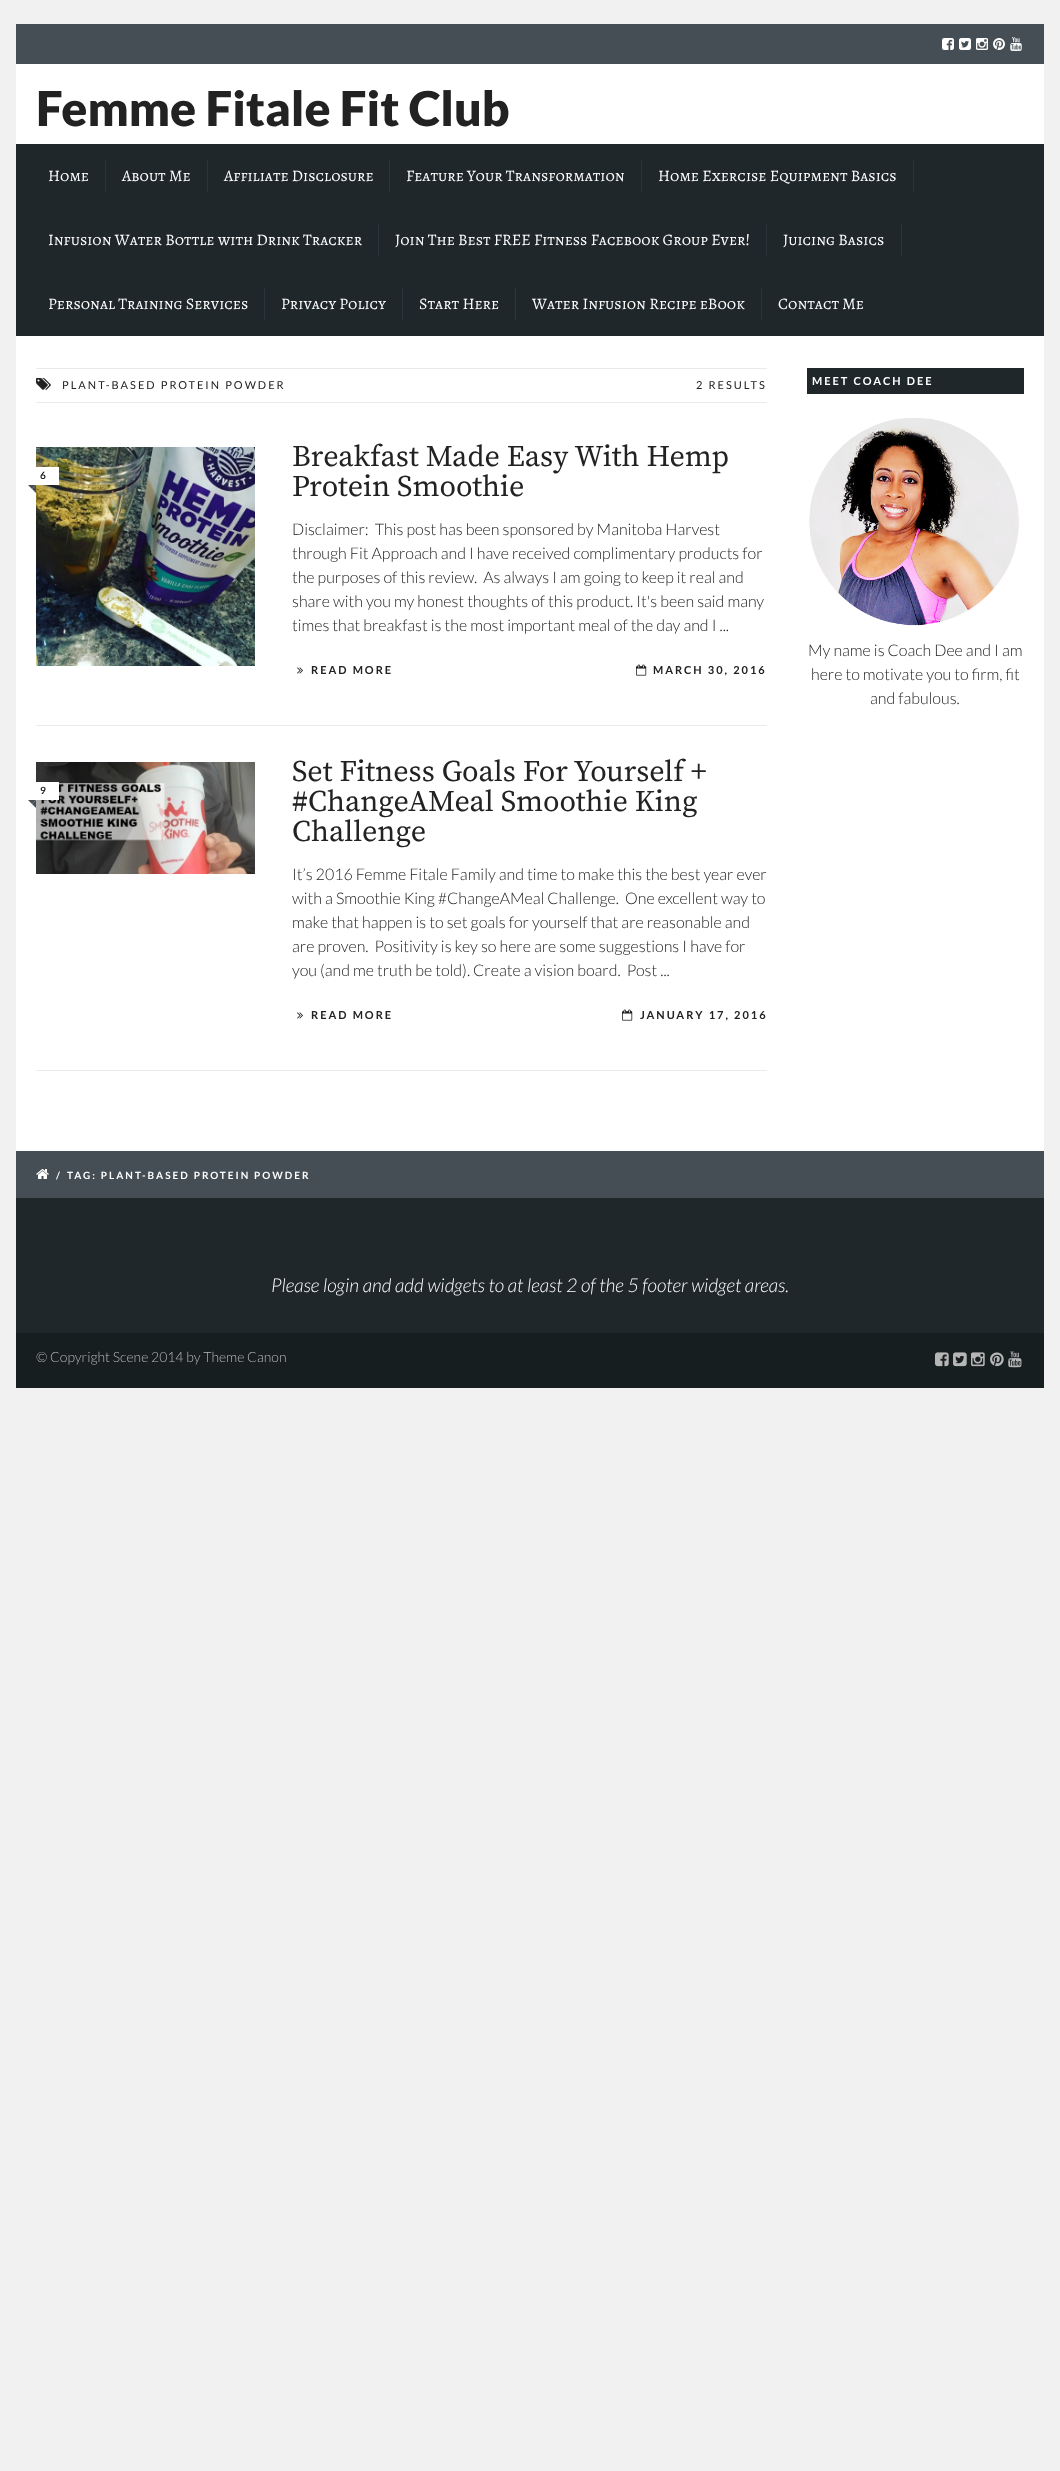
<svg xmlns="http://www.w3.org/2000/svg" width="1060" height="2471">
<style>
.a{font:900 48px Lato;fill:#222}
.b{font:16px Alegreya SC;fill:#fff}
.c{font:11px Lato;letter-spacing:2px;fill:#222}
.d{font:bold 10px Lato;fill:#222}
.e{font:30px Source Serif Pro;fill:#222}
.f{font:300 16px Lato;fill:#222}
.g{font:bold 11px Lato;letter-spacing:2px;fill:#222}
.h{font:bold 11px Lato;letter-spacing:2px;fill:#fff}
.i{font:bold 10px Lato;letter-spacing:2px;fill:#fff}
.j{font:italic 300 19px Lato;fill:#fff}
.k{font:300 14px Lato;fill:#b6b6b6}
</style>
<rect width="100%" height="100%" fill="#f1f1f1"/>
<path fill="#454e55" d="M16 24h1028v40H16z"/>
<image href="1.png" x="942" y="38" width="12" height="12"/>
<image href="2.png" x="959" y="38" width="12" height="12"/>
<image href="3.png" x="976" y="38" width="12" height="12"/>
<image href="4.png" x="993" y="38" width="12" height="12"/>
<image href="5.png" x="1010" y="37" width="12" height="14"/>
<path fill="#fff" d="M16 64h1028v80H16z"/>
<path fill="#1f272a" d="M16 144h1028v192H16z"/>
<path fill="#2b363c" d="M105 160h1v32H105z"/>
<path fill="#2b363c" d="M207 160h1v32H207z"/>
<path fill="#2b363c" d="M389 160h1v32H389z"/>
<path fill="#2b363c" d="M641 160h1v32H641z"/>
<path fill="#2b363c" d="M913 160h1v32H913z"/>
<path fill="#2b363c" d="M378 224h1v32H378z"/>
<path fill="#2b363c" d="M766 224h1v32H766z"/>
<path fill="#2b363c" d="M901 224h1v32H901z"/>
<path fill="#2b363c" d="M264 288h1v32H264z"/>
<path fill="#2b363c" d="M402 288h1v32H402z"/>
<path fill="#2b363c" d="M515 288h1v32H515z"/>
<path fill="#2b363c" d="M761 288h1v32H761z"/>
<path fill="#fff" d="M16 336h1028v815H16z"/>
<path fill="#eaeaea" d="M36 368h731v1H36z"/>
<path fill="#eaeaea" d="M36 402h731v1H36z"/>
<image href="6.png" x="36" y="378" width="15" height="12"/>
<path fill="#eaeaea" d="M36 725h731v1H36z"/>
<image href="7.png" x="36" y="447" width="219" height="219"/>
<path fill="#fff" d="M36 467h23v18H36z"/>
<path fill="#454e54" d="M28 485h8l-4 4z"/>
<path fill="#454e54" d="M36 485v8l-4-4z"/>
<image href="8.png" x="297" y="667" width="6" height="7"/>
<image href="9.png" x="636" y="664" width="11" height="12"/>
<path fill="#eaeaea" d="M36 1070h731v1H36z"/>
<image href="10.png" x="36" y="762" width="219" height="112"/>
<path fill="#fff" d="M36 782h23v18H36z"/>
<path fill="#454e54" d="M28 800h8l-4 4z"/>
<path fill="#454e54" d="M36 800v8l-4-4z"/>
<image href="8.png" x="297" y="1012" width="6" height="7"/>
<image href="9.png" x="622" y="1009" width="11" height="12"/>
<path fill="#20272b" d="M807 368h217v26H807z"/>
<image href="11.png" x="809" y="418" width="210" height="208"/>
<path fill="#454e55" d="M16 1151h1028v47H16z"/>
<image href="12.png" x="36" y="1169" width="13" height="10"/>
<path fill="#20272b" d="M16 1198h1028v135H16z"/>
<path fill="#171e20" d="M16 1333h1028v55H16z"/>
<image href="13.png" x="935" y="1352" width="14" height="15"/>
<image href="14.png" x="953" y="1352" width="14" height="15"/>
<image href="15.png" x="971" y="1352" width="14" height="15"/>
<image href="16.png" x="990" y="1352" width="14" height="15"/>
<image href="17.png" x="1008" y="1351" width="14" height="17"/>
<text class="a" x="36" y="126">Femme Fitale Fit Club</text>
<text class="b" x="48" y="181">Home</text>
<text class="b" x="122" y="181">About Me</text>
<text class="b" x="224" y="181">Affiliate Disclosure</text>
<text class="b" x="406" y="181">Feature Your Transformation</text>
<text class="b" x="658" y="181">Home Exercise Equipment Basics</text>
<text class="b" x="48" y="245">Infusion Water Bottle with Drink Tracker</text>
<text class="b" x="395" y="245">Join The Best FREE Fitness Facebook Group Ever!</text>
<text class="b" x="783" y="245">Juicing Basics</text>
<text class="b" x="48" y="309">Personal Training Services</text>
<text class="b" x="281" y="309">Privacy Policy</text>
<text class="b" x="419" y="309">Start Here</text>
<text class="b" x="532" y="309">Water Infusion Recipe eBook</text>
<text class="b" x="778" y="309">Contact Me</text>
<text class="c" x="62" y="389">PLANT-BASED PROTEIN POWDER</text>
<text class="c" x="696" y="389">2 RESULTS</text>
<text class="d" x="40" y="479">6</text>
<text class="e" x="292" y="466">Breakfast Made Easy With Hemp</text>
<text class="e" x="292" y="496">Protein Smoothie</text>
<text class="f" xml:space="preserve" x="292" y="535">Disclaimer:  This post has been sponsored by Manitoba Harvest</text>
<text class="f" x="292" y="559">through Fit Approach and I have received complimentary products for</text>
<text class="f" xml:space="preserve" x="292" y="583">the purposes of this review.  As always I am going to keep it real and</text>
<text class="f" x="292" y="607">share with you my honest thoughts of this product. It's been said many</text>
<text class="f" x="292" y="631">times that breakfast is the most important meal of the day and I ...</text>
<text class="g" x="311" y="674">READ MORE</text>
<text class="g" x="653" y="674">MARCH 30, 2016</text>
<text class="d" x="40" y="794">9</text>
<text class="e" x="292" y="781">Set Fitness Goals For Yourself +</text>
<text class="e" x="292" y="811">#ChangeAMeal Smoothie King</text>
<text class="e" x="292" y="841">Challenge</text>
<text class="f" x="292" y="880">It’s 2016 Femme Fitale Family and time to make this the best year ever</text>
<text class="f" xml:space="preserve" x="292" y="904">with a Smoothie King #ChangeAMeal Challenge.  One excellent way to</text>
<text class="f" x="292" y="928">make that happen is to set goals for yourself that are reasonable and</text>
<text class="f" xml:space="preserve" x="292" y="952">are proven.  Positivity is key so here are some suggestions I have for</text>
<text class="f" xml:space="preserve" x="292" y="976">you (and me truth be told). Create a vision board.  Post ...</text>
<text class="g" x="311" y="1019">READ MORE</text>
<text class="g" x="640" y="1019">JANUARY 17, 2016</text>
<text class="h" x="812" y="385">MEET COACH DEE</text>
<text class="f" x="808" y="656">My name is Coach Dee and I am</text>
<text class="f" x="811" y="680">here to motivate you to firm, fit</text>
<text class="f" x="870" y="704">and fabulous.</text>
<text class="i" x="56" y="1179">/</text>
<text class="i" x="67" y="1179">TAG: PLANT-BASED PROTEIN POWDER</text>
<text class="j" x="271" y="1292">Please login and add widgets to at least 2 of the 5 footer widget areas.</text>
<text class="k" x="36" y="1362">© Copyright Scene 2014 by Theme Canon</text>
</svg>
